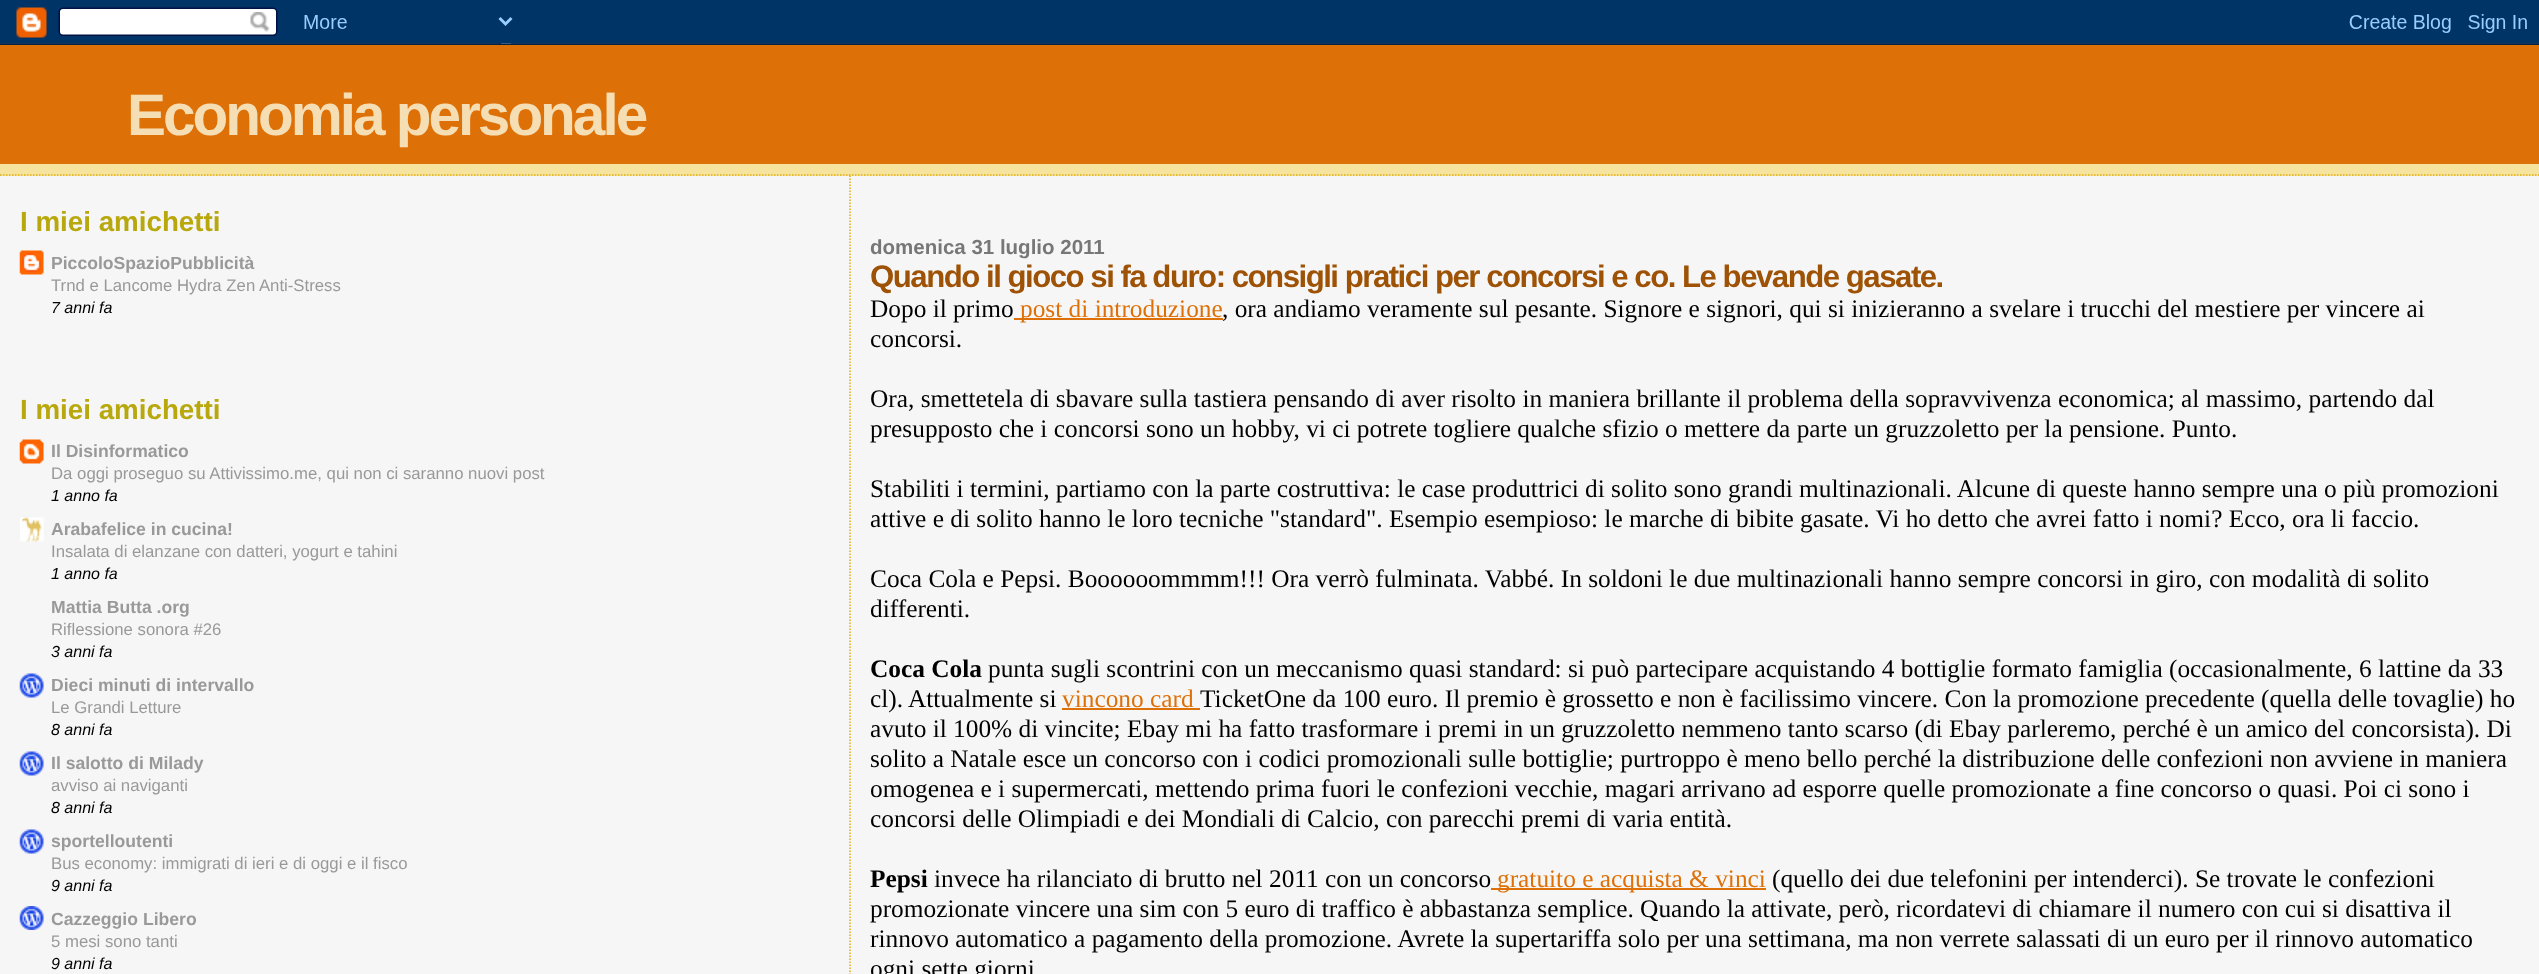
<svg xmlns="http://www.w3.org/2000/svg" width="2539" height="974">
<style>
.a{font:bold 58.5px Liberation Sans;letter-spacing:-3px;fill:#f5deb3}
.b{font:bold 27.75px Liberation Sans;fill:#b8a80d}
.c{font:bold 17.6px Liberation Sans;fill:#999}
.d{font:16.75px Liberation Sans;fill:#999}
.e{font:italic 16px Liberation Sans;fill:#000}
.f{font:bold 20.5px Liberation Sans;fill:#777}
.g{font:bold 31.2px Liberation Sans;letter-spacing:-1.5px;fill:#9e5205}
.h{font:25.35px Liberation Serif;fill:#000}
.i{font:25.35px Liberation Serif;fill:#de7008}
.j{font:bold 25.35px Liberation Serif;fill:#000}
</style>
<rect width="100%" height="100%" fill="#f6f6f6"/>
<image href="1.png" x="0" y="0" width="2539" height="45"/>
<path fill="#f5e39e" d="M0 164h2539v12H0z"/>
<path fill="none" stroke="#e0ad12" stroke-width="1.5" stroke-dasharray="1.5 1.5" d="M0 175h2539.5"/>
<path fill="#de7008" d="M0 45h2539v119H0z"/>
<image href="2.png" x="19" y="250" width="25" height="25"/>
<image href="3.png" x="19" y="439" width="25" height="25"/>
<image href="4.png" x="20" y="517" width="24" height="25"/>
<image href="5.png" x="19" y="673" width="25" height="25"/>
<image href="5.png" x="19" y="751" width="25" height="25"/>
<image href="5.png" x="19" y="829" width="25" height="25"/>
<image href="6.png" x="19" y="906" width="25" height="24"/>
<path fill="none" stroke="#e0ad12" stroke-width="1.5" stroke-dasharray="1.5 1.5" d="M850 175.5v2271"/>
<path fill="#de7008" d="M1014 318h209v2H1014z"/>
<path fill="#de7008" d="M1062 708h138v2H1062z"/>
<path fill="#de7008" d="M1491 888h275v2H1491z"/>
<text class="a" x="127" y="135">Economia personale</text>
<text class="b" x="20" y="231">I miei amichetti</text>
<text class="c" x="51" y="269">PiccoloSpazioPubblicità</text>
<text class="d" x="51" y="291">Trnd e Lancome Hydra Zen Anti-Stress</text>
<text class="e" x="51" y="313">7 anni fa</text>
<text class="b" x="20" y="419">I miei amichetti</text>
<text class="c" x="51" y="457">Il Disinformatico</text>
<text class="d" x="51" y="479">Da oggi proseguo su Attivissimo.me, qui non ci saranno nuovi post</text>
<text class="e" x="51" y="501">1 anno fa</text>
<text class="c" x="51" y="535">Arabafelice in cucina!</text>
<text class="d" x="51" y="557">Insalata di elanzane con datteri, yogurt e tahini</text>
<text class="e" x="51" y="579">1 anno fa</text>
<text class="c" x="51" y="613">Mattia Butta .org</text>
<text class="d" x="51" y="635">Riflessione sonora #26</text>
<text class="e" x="51" y="657">3 anni fa</text>
<text class="c" x="51" y="691">Dieci minuti di intervallo</text>
<text class="d" x="51" y="713">Le Grandi Letture</text>
<text class="e" x="51" y="735">8 anni fa</text>
<text class="c" x="51" y="769">Il salotto di Milady</text>
<text class="d" x="51" y="791">avviso ai naviganti</text>
<text class="e" x="51" y="813">8 anni fa</text>
<text class="c" x="51" y="847">sportelloutenti</text>
<text class="d" x="51" y="869">Bus economy: immigrati di ieri e di oggi e il fisco</text>
<text class="e" x="51" y="891">9 anni fa</text>
<text class="c" x="51" y="925">Cazzeggio Libero</text>
<text class="d" x="51" y="947">5 mesi sono tanti</text>
<text class="e" x="51" y="969">9 anni fa</text>
<text class="f" x="870" y="254">domenica 31 luglio 2011</text>
<text class="g" x="870" y="287">Quando il gioco si fa duro: consigli pratici per concorsi e co. Le bevande gasate.</text>
<text class="h" x="870" y="317">Dopo il primo</text>
<text class="i" x="1020" y="317">post di introduzione</text>
<text class="h" x="1222" y="317">, ora andiamo veramente sul pesante. Signore e signori, qui si inizieranno a svelare i trucchi del mestiere per vincere ai</text>
<text class="h" x="870" y="347">concorsi.</text>
<text class="h" x="870" y="407">Ora, smettetela di sbavare sulla tastiera pensando di aver risolto in maniera brillante il problema della sopravvivenza economica; al massimo, partendo dal</text>
<text class="h" x="870" y="437">presupposto che i concorsi sono un hobby, vi ci potrete togliere qualche sfizio o mettere da parte un gruzzoletto per la pensione. Punto.</text>
<text class="h" x="870" y="497">Stabiliti i termini, partiamo con la parte costruttiva: le case produttrici di solito sono grandi multinazionali. Alcune di queste hanno sempre una o più promozioni</text>
<text class="h" x="870" y="527">attive e di solito hanno le loro tecniche "standard". Esempio esempioso: le marche di bibite gasate. Vi ho detto che avrei fatto i nomi? Ecco, ora li faccio.</text>
<text class="h" x="870" y="587">Coca Cola e Pepsi. Boooooommmm!!! Ora verrò fulminata. Vabbé. In soldoni le due multinazionali hanno sempre concorsi in giro, con modalità di solito</text>
<text class="h" x="870" y="617">differenti.</text>
<text class="j" x="870" y="677">Coca Cola</text>
<text class="h" x="988" y="677">punta sugli scontrini con un meccanismo quasi standard: si può partecipare acquistando 4 bottiglie formato famiglia (occasionalmente, 6 lattine da 33</text>
<text class="h" x="870" y="707">cl). Attualmente si</text>
<text class="i" x="1062" y="707">vincono card</text>
<text class="h" x="1200" y="707">TicketOne da 100 euro. Il premio è grossetto e non è facilissimo vincere. Con la promozione precedente (quella delle tovaglie) ho</text>
<text class="h" x="870" y="737">avuto il 100% di vincite; Ebay mi ha fatto trasformare i premi in un gruzzoletto nemmeno tanto scarso (di Ebay parleremo, perché è un amico del concorsista). Di</text>
<text class="h" x="870" y="767">solito a Natale esce un concorso con i codici promozionali sulle bottiglie; purtroppo è meno bello perché la distribuzione delle confezioni non avviene in maniera</text>
<text class="h" x="870" y="797">omogenea e i supermercati, mettendo prima fuori le confezioni vecchie, magari arrivano ad esporre quelle promozionate a fine concorso o quasi. Poi ci sono i</text>
<text class="h" x="870" y="827">concorsi delle Olimpiadi e dei Mondiali di Calcio, con parecchi premi di varia entità.</text>
<text class="j" x="870" y="887">Pepsi</text>
<text class="h" x="934" y="887">invece ha rilanciato di brutto nel 2011 con un concorso</text>
<text class="i" x="1497" y="887">gratuito e acquista &amp; vinci</text>
<text class="h" x="1772" y="887">(quello dei due telefonini per intenderci). Se trovate le confezioni</text>
<text class="h" x="870" y="917">promozionate vincere una sim con 5 euro di traffico è abbastanza semplice. Quando la attivate, però, ricordatevi di chiamare il numero con cui si disattiva il</text>
<text class="h" x="870" y="947">rinnovo automatico a pagamento della promozione. Avrete la supertariffa solo per una settimana, ma non verrete salassati di un euro per il rinnovo automatico</text>
<text class="h" x="870" y="977">ogni sette giorni</text>
</svg>
